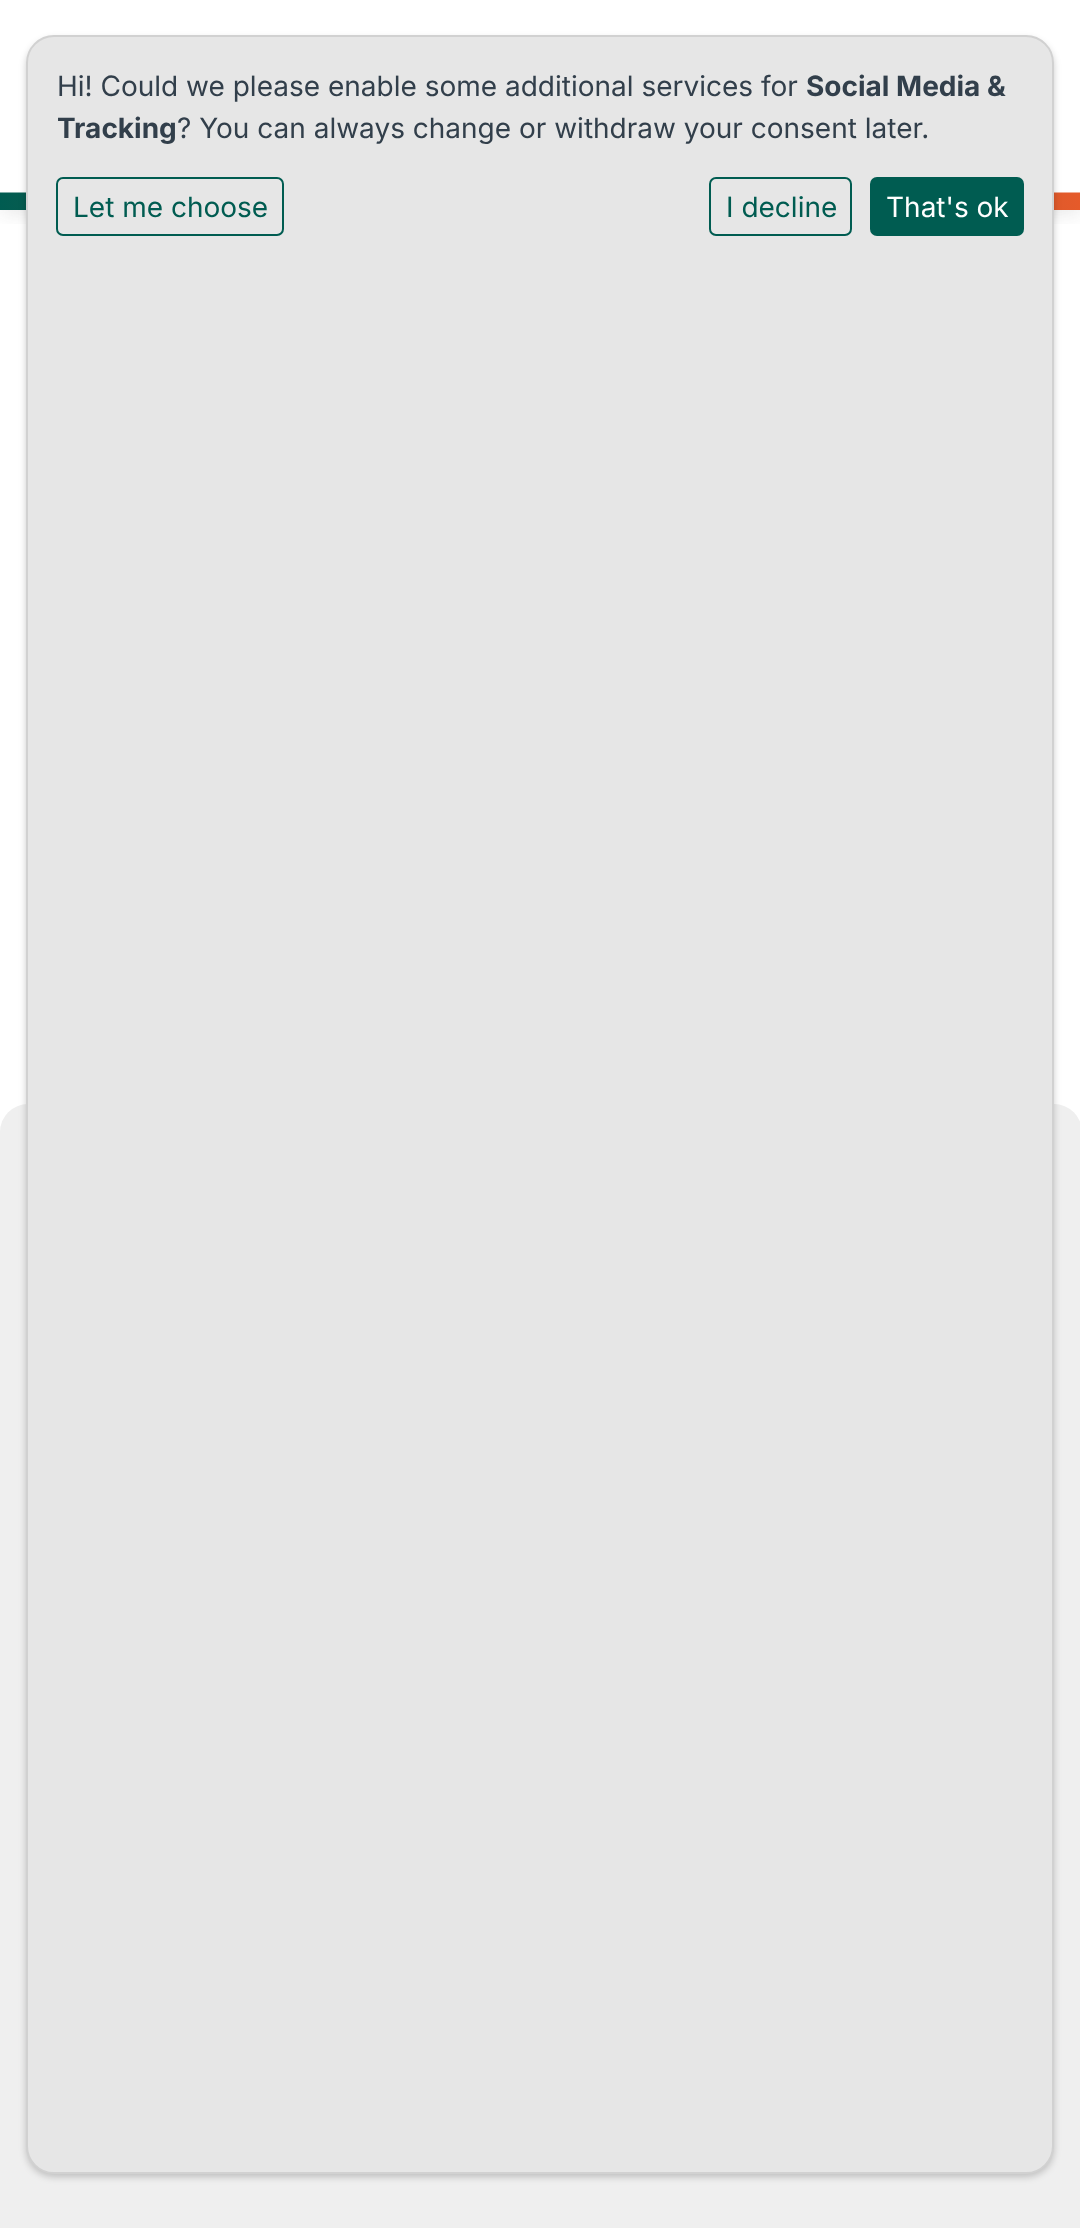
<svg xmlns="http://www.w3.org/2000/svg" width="1080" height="2228">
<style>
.a{font:28px Inter;fill:#323f4b}
.b{font:bold 28px Inter;fill:#323f4b}
.c{font:28px Inter;fill:#005c51}
.d{font:28px Inter;fill:#fff}
</style>
<defs>
<clipPath id="clip1"><path d="M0 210h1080v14H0z"/></clipPath>
</defs>
<rect width="100%" height="100%" fill="#fff"/>
<g clip-path="url(#clip1)">
<path fill="#4b4b4b26" filter="blur(10.5px)" d="M2 5h1078v207H2z"/>
</g>
<image href="1.png" x="0" y="192" width="1080" height="18"/>
<rect fill="#efefef" y="1104" width="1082" height="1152" rx="28"/>
<rect fill="#00000033" filter="blur(3.5px)" x="26" y="39" width="1028" height="2138" rx="28"/>
<rect fill="#e6e6e6" stroke="#d1d1d1" stroke-width="2" x="27" y="36" width="1026" height="2137" rx="27"/>
<rect fill="none" stroke="#005c51" stroke-width="2" x="57" y="178" width="226" height="57" rx="6"/>
<rect fill="none" stroke="#005c51" stroke-width="2" x="710" y="178" width="141" height="57" rx="6"/>
<rect fill="#005c51" x="870" y="177" width="154" height="59" rx="7"/>
<text class="a" x="57" y="96">Hi! Could we please enable some additional services for</text>
<text class="b" x="806" y="96">Social Media &amp;</text>
<text class="b" x="57" y="138">Tracking</text>
<text class="a" x="177" y="138">? You can always change or withdraw your consent later.</text>
<text class="c" x="73" y="217">Let me choose</text>
<text class="c" x="726" y="217">I decline</text>
<text class="d" x="886" y="217">That's ok</text>
</svg>
